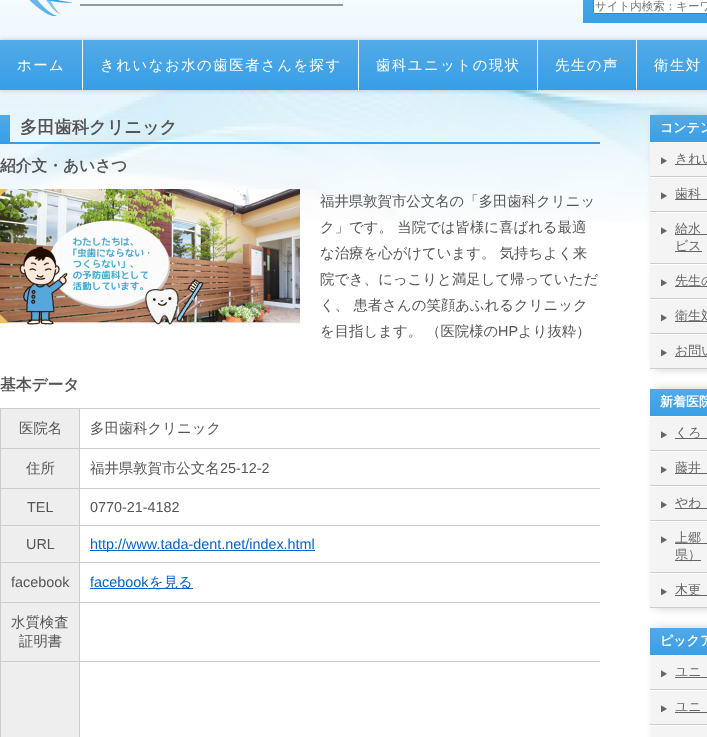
<svg xmlns="http://www.w3.org/2000/svg" width="707" height="737">
<style>
.a{font:500 11.5px WenQuanYi Zen Hei;fill:#757575}
.b{font:500 14.4px WenQuanYi Zen Hei;letter-spacing:1.5px;fill:#fff}
.c{font:bold 17.25px WenQuanYi Zen Hei;fill:#555}
.d{font:bold 15.75px WenQuanYi Zen Hei;fill:#555}
.e{font:500 14.4px WenQuanYi Zen Hei;fill:#555}
.f{font:14.4px Liberation Sans;fill:#555}
.g{font:14.4px Liberation Sans;fill:#06c}
.h{font:500 14.4px WenQuanYi Zen Hei;fill:#06c}
.i{font:bold 13px WenQuanYi Zen Hei;fill:#fff}
.j{font:500 13px WenQuanYi Zen Hei;fill:#666}
</style>
<rect width="100%" height="100%" fill="#fff"/>
<image href="1.png" x="0" y="0" width="707" height="222"/>
<image href="2.png" x="29" y="0" width="43" height="16"/>
<path fill="#999" d="M80 4h263v2H80z"/>
<image href="3.png" x="583" y="0" width="124" height="23"/>
<path fill="#fff" d="M595-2h112v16h-112c-1 0-2-1-2-2v-12c0-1 1-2 2-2z"/>
<rect fill="none" stroke="#767676" x="593.5" y="-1.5" width="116" height="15" rx="1.5"/>
<path fill="#00000033" filter="blur(2.5px)" d="M0 40h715v50H0z"/>
<image href="4.png" x="0" y="40" width="707" height="50"/>
<path fill="#fff" d="M82 40h1v50H82z"/>
<path fill="#fff" d="M358 40h1v50H358z"/>
<path fill="#fff" d="M537 40h1v50H537z"/>
<path fill="#fff" d="M636 40h1v50H636z"/>
<image href="5.png" x="0" y="115" width="10" height="27"/>
<path fill="#369ee7" d="M0 142h600v2H0z"/>
<image href="6.png" x="0" y="189" width="300" height="136"/>
<path fill="#ccc" d="M0 408h600v1H0z"/>
<path fill="#ccc" d="M0 408h1v329H0z"/>
<path fill="#eee" d="M1 409h78v39H1z"/>
<path fill="#ccc" d="M79 448h521v1H79z"/>
<path fill="#ccc" d="M79 488h521v1H79z"/>
<path fill="#ccc" d="M79 525h521v1H79z"/>
<path fill="#ccc" d="M79 562h521v1H79z"/>
<path fill="#ccc" d="M79 602h521v1H79z"/>
<path fill="#ccc" d="M79 661h521v1H79z"/>
<path fill="#ccc" d="M79 661h1v76H79z"/>
<path fill="#ccc" d="M0 661h80v1H0z"/>
<path fill="#ccc" d="M79 602h1v60H79z"/>
<path fill="#ccc" d="M0 602h80v1H0z"/>
<path fill="#ccc" d="M79 562h1v41H79z"/>
<path fill="#ccc" d="M0 562h80v1H0z"/>
<path fill="#ccc" d="M79 525h1v38H79z"/>
<path fill="#ccc" d="M0 525h80v1H0z"/>
<path fill="#ccc" d="M79 488h1v38H79z"/>
<path fill="#ccc" d="M0 488h80v1H0z"/>
<path fill="#ccc" d="M79 448h1v41H79z"/>
<path fill="#ccc" d="M0 448h80v1H0z"/>
<path fill="#ccc" d="M79 408h1v41H79z"/>
<path fill="#eee" d="M1 449h78v39H1z"/>
<path fill="#eee" d="M1 489h78v36H1z"/>
<path fill="#eee" d="M1 526h78v36H1z"/>
<path fill="#06c" d="M90 550h225v1H90z"/>
<path fill="#eee" d="M1 563h78v39H1z"/>
<path fill="#06c" d="M90 588h103v1H90z"/>
<path fill="#eee" d="M1 603h78v58H1z"/>
<path fill="#eee" d="M1 662h78v75H1z"/>
<path fill="#00000033" filter="blur(5px)" d="M655 115h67v254H655z"/>
<path fill="#f4f4f4" d="M650 143h57v225H650z"/>
<image href="7.png" x="650" y="115" width="57" height="27"/>
<image href="8.png" x="661" y="157" width="6" height="8"/>
<path fill="#fff" d="M650 142h57v1H650z"/>
<path fill="#ccc" d="M650 176h57v1H650z"/>
<path fill="#666" d="M675 164h32v1H675z"/>
<image href="8.png" x="661" y="192" width="6" height="8"/>
<path fill="#fff" d="M650 177h57v1H650z"/>
<path fill="#ccc" d="M650 211h57v1H650z"/>
<path fill="#666" d="M675 199h32v1H675z"/>
<image href="8.png" x="661" y="227" width="6" height="8"/>
<path fill="#fff" d="M650 212h57v1H650z"/>
<path fill="#ccc" d="M650 263h57v1H650z"/>
<path fill="#666" d="M675 234h32v1H675z"/>
<path fill="#666" d="M675 251h27v1H675z"/>
<image href="8.png" x="661" y="279" width="6" height="8"/>
<path fill="#fff" d="M650 264h57v1H650z"/>
<path fill="#ccc" d="M650 298h57v1H650z"/>
<path fill="#666" d="M675 286h32v1H675z"/>
<image href="8.png" x="661" y="314" width="6" height="8"/>
<path fill="#fff" d="M650 299h57v1H650z"/>
<path fill="#ccc" d="M650 333h57v1H650z"/>
<path fill="#666" d="M675 321h32v1H675z"/>
<image href="8.png" x="661" y="349" width="6" height="8"/>
<path fill="#fff" d="M650 334h57v1H650z"/>
<path fill="#ccc" d="M650 368h57v1H650z"/>
<path fill="#666" d="M675 356h32v1H675z"/>
<path fill="#00000033" filter="blur(5px)" d="M655 389h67v219H655z"/>
<path fill="#f4f4f4" d="M650 417h57v190H650z"/>
<image href="7.png" x="650" y="389" width="57" height="27"/>
<image href="8.png" x="661" y="431" width="6" height="8"/>
<path fill="#fff" d="M650 416h57v1H650z"/>
<path fill="#ccc" d="M650 450h57v1H650z"/>
<path fill="#666" d="M675 438h32v1H675z"/>
<image href="8.png" x="661" y="466" width="6" height="8"/>
<path fill="#fff" d="M650 451h57v1H650z"/>
<path fill="#ccc" d="M650 485h57v1H650z"/>
<path fill="#666" d="M675 473h32v1H675z"/>
<image href="8.png" x="661" y="501" width="6" height="8"/>
<path fill="#fff" d="M650 486h57v1H650z"/>
<path fill="#ccc" d="M650 520h57v1H650z"/>
<path fill="#666" d="M675 508h32v1H675z"/>
<image href="8.png" x="661" y="536" width="6" height="8"/>
<path fill="#fff" d="M650 521h57v1H650z"/>
<path fill="#ccc" d="M650 572h57v1H650z"/>
<path fill="#666" d="M675 543h32v1H675z"/>
<path fill="#666" d="M675 560h26v1H675z"/>
<image href="8.png" x="661" y="588" width="6" height="8"/>
<path fill="#fff" d="M650 573h57v1H650z"/>
<path fill="#ccc" d="M650 607h57v1H650z"/>
<path fill="#666" d="M675 595h32v1H675z"/>
<path fill="#00000033" filter="blur(5px)" d="M655 628h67v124H655z"/>
<path fill="#f4f4f4" d="M652 656h55v81H652z"/>
<image href="7.png" x="650" y="628" width="57" height="27"/>
<image href="8.png" x="661" y="670" width="6" height="8"/>
<path fill="#fff" d="M650 655h57v1H650z"/>
<path fill="#ccc" d="M650 689h57v1H650z"/>
<path fill="#666" d="M675 677h32v1H675z"/>
<image href="8.png" x="661" y="705" width="6" height="8"/>
<path fill="#fff" d="M650 690h57v1H650z"/>
<path fill="#ccc" d="M650 724h57v1H650z"/>
<path fill="#666" d="M675 712h32v1H675z"/>
<path fill="#fff" d="M650 725h57v1H650z"/>
<text class="a" x="595" y="10">サイト内検索：キーワ</text>
<text class="b" x="17" y="70">ホーム</text>
<text class="b" x="100" y="70">きれいなお水の歯医者さんを探す</text>
<text class="b" x="376" y="70">歯科ユニットの現状</text>
<text class="b" x="555" y="70">先生の声</text>
<text class="b" x="654" y="70">衛生対</text>
<text class="c" x="20" y="133">多田歯科クリニック</text>
<text class="d" x="0" y="171">紹介文・あいさつ</text>
<text class="e" x="320" y="206">福井県敦賀市公文名の「多田歯科クリニッ</text>
<text class="e" x="320" y="232">ク」です。 当院では皆様に喜ばれる最適</text>
<text class="e" x="320" y="258">な治療を心がけています。 気持ちよく来</text>
<text class="e" x="320" y="284">院でき、にっこりと満足して帰っていただ</text>
<text class="e" x="320" y="310">く、 患者さんの笑顔あふれるクリニック</text>
<text class="e" x="320" y="336">を目指します。</text>
<text class="e" x="426" y="336">（医院様の</text>
<text class="f" x="498" y="336">HP</text>
<text class="e" x="518" y="336">より抜粋）</text>
<text class="d" x="0" y="390">基本データ</text>
<text class="e" x="19" y="433">医院名</text>
<text class="e" x="90" y="433">多田歯科クリニック</text>
<text class="e" x="26" y="473">住所</text>
<text class="e" x="90" y="473">福井県敦賀市公文名</text>
<text class="f" x="220" y="473">25-12-2</text>
<text class="f" x="27" y="512">TEL</text>
<text class="f" x="90" y="512">0770-21-4182</text>
<text class="f" x="26" y="549">URL</text>
<text class="g" x="90" y="549">http://www.tada-dent.net/index.html</text>
<text class="f" x="11" y="587">facebook</text>
<text class="g" x="90" y="587">facebook</text>
<text class="h" x="149" y="587">を見る</text>
<text class="e" x="11" y="627">水質検査</text>
<text class="e" x="19" y="646">証明書</text>
<text class="i" x="660" y="132">コンテン</text>
<text class="j" x="675" y="163">きれい</text>
<text class="j" x="675" y="198">歯科</text>
<text class="j" x="675" y="233">給水</text>
<text class="j" x="675" y="250">ビス</text>
<text class="j" x="675" y="285">先生の</text>
<text class="j" x="675" y="320">衛生対</text>
<text class="j" x="675" y="355">お問い</text>
<text class="i" x="660" y="406">新着医院</text>
<text class="j" x="675" y="437">くろ</text>
<text class="j" x="675" y="472">藤井</text>
<text class="j" x="675" y="507">やわ</text>
<text class="j" x="675" y="542">上郷</text>
<text class="j" x="675" y="559">県）</text>
<text class="j" x="675" y="594">木更</text>
<text class="i" x="660" y="645">ピックア</text>
<text class="j" x="675" y="676">ユニ</text>
<text class="j" x="675" y="711">ユニ</text>
</svg>
